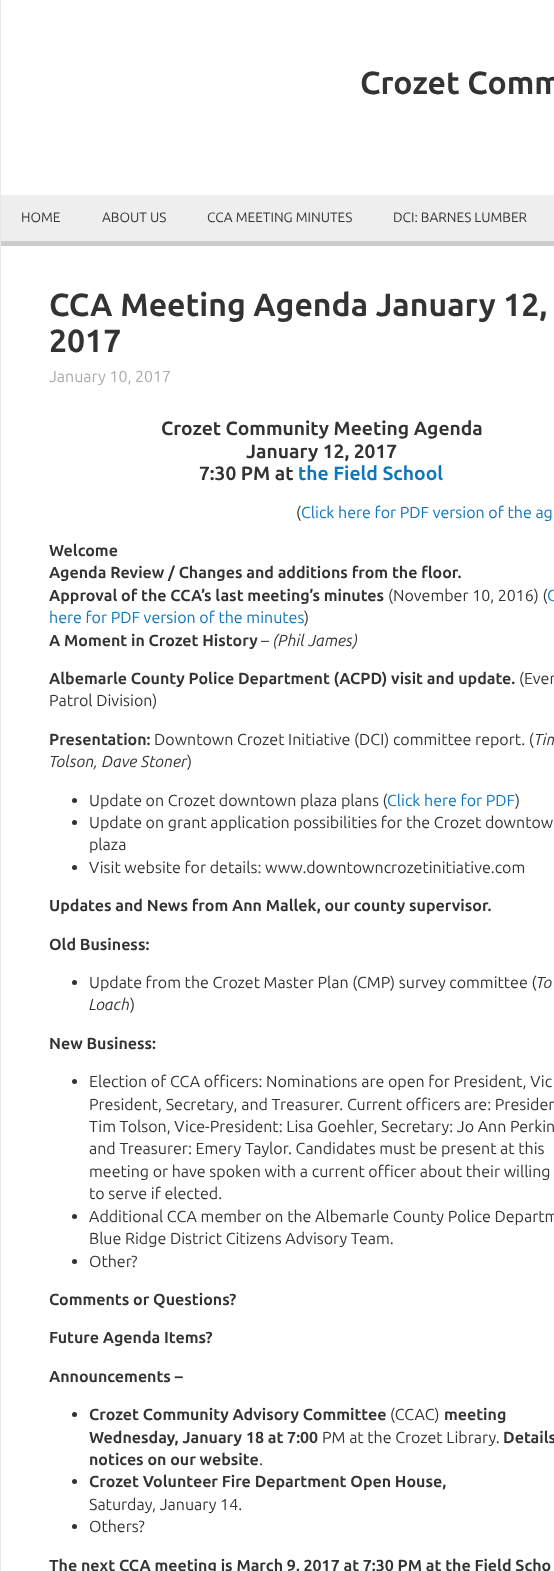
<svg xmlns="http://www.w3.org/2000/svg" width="554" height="1571">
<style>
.a{font:bold 32px Ubuntu;fill:#333}
.b{font:13.6px Ubuntu;fill:#333}
.c{font:16px Ubuntu;fill:#aaa}
.d{font:bold 19.25px Ubuntu;fill:#333}
.e{font:bold 19.25px Ubuntu;fill:#0e76bc}
.f{font:16px Ubuntu;fill:#333}
.g{font:16px Ubuntu;fill:#0e76bc}
.h{font:bold 16px Ubuntu;fill:#333}
.i{font:italic 16px Ubuntu;fill:#333}
</style>
<rect width="100%" height="100%" fill="#fff"/>
<path fill="#e9e9e9" d="M0 0h1v1571H0z"/>
<path fill="#eee" d="M1 195h553v46H1z"/>
<path fill="#ccc" d="M1 241h553v5H1z"/>
<circle fill="#333" cx="74.5" cy="800.5" r="2.5"/>
<circle fill="#333" cx="74.5" cy="822.5" r="2.5"/>
<circle fill="#333" cx="74.5" cy="867.5" r="2.5"/>
<circle fill="#333" cx="74.5" cy="982.5" r="2.5"/>
<circle fill="#333" cx="74.5" cy="1081.5" r="2.5"/>
<circle fill="#333" cx="74.5" cy="1216.5" r="2.5"/>
<circle fill="#333" cx="74.5" cy="1261.5" r="2.5"/>
<circle fill="#333" cx="74.5" cy="1414.5" r="2.5"/>
<circle fill="#333" cx="74.5" cy="1481.5" r="2.5"/>
<circle fill="#333" cx="74.5" cy="1526.5" r="2.5"/>
<text class="a" x="360" y="94">Crozet Comm</text>
<text class="b" x="21" y="222">HOME</text>
<text class="b" x="102" y="222">ABOUT US</text>
<text class="b" x="207" y="222">CCA MEETING MINUTES</text>
<text class="b" x="393" y="222">DCI: BARNES LUMBER</text>
<text class="a" x="49" y="316">CCA Meeting Agenda January 12,</text>
<text class="a" x="49" y="352">2017</text>
<text class="c" x="49" y="382">January 10, 2017</text>
<text class="d" x="161" y="435">Crozet Community Meeting Agenda</text>
<text class="d" x="246" y="458">January 12, 2017</text>
<text class="d" x="199" y="480">7:30 PM at</text>
<text class="e" x="298" y="480">the Field School</text>
<text class="f" x="296" y="518">(</text>
<text class="g" x="301" y="518">Click here for PDF version of the ag</text>
<text class="h" x="49" y="556">Welcome</text>
<text class="h" x="49" y="578">Agenda Review / Changes and additions from the floor.</text>
<text class="h" x="49" y="601">Approval of the CCA’s last meeting’s minutes</text>
<text class="f" x="388" y="601">(November 10, 2016) (</text>
<text class="g" x="547" y="601">C</text>
<text class="g" x="49" y="623">here for PDF version of the minutes</text>
<text class="f" x="304" y="623">)</text>
<text class="h" x="49" y="646">A Moment in Crozet History</text>
<text class="f" x="261" y="646">–</text>
<text class="i" x="273" y="646">(Phil James)</text>
<text class="h" x="49" y="684">Albemarle County Police Department (ACPD) visit and update.</text>
<text class="f" x="519" y="684">(Even</text>
<text class="f" x="49" y="706">Patrol Division)</text>
<text class="h" x="49" y="745">Presentation:</text>
<text class="f" x="154" y="745">Downtown Crozet Initiative (DCI) committee report. (</text>
<text class="i" x="534" y="745">Tim</text>
<text class="i" x="49" y="767">Tolson, Dave Stoner</text>
<text class="f" x="187" y="767">)</text>
<text class="f" x="89" y="806">Update on Crozet downtown plaza plans (</text>
<text class="g" x="387" y="806">Click here for PDF</text>
<text class="f" x="515" y="806">)</text>
<text class="f" x="89" y="828">Update on grant application possibilities for the Crozet downtow</text>
<text class="f" x="89" y="850">plaza</text>
<text class="f" x="89" y="873">Visit website for details: www.downtowncrozetinitiative.com</text>
<text class="h" x="49" y="911">Updates and News from Ann Mallek, our county supervisor.</text>
<text class="h" x="49" y="950">Old Business:</text>
<text class="f" x="89" y="988">Update from the Crozet Master Plan (CMP) survey committee (</text>
<text class="i" x="536" y="988">To</text>
<text class="i" x="89" y="1010">Loach</text>
<text class="f" x="130" y="1010">)</text>
<text class="h" x="49" y="1049">New Business:</text>
<text class="f" x="89" y="1087">Election of CCA officers: Nominations are open for President, Vic</text>
<text class="f" x="89" y="1110">President, Secretary, and Treasurer. Current officers are: Presiden</text>
<text class="f" x="89" y="1132">Tim Tolson, Vice-President: Lisa Goehler, Secretary: Jo Ann Perkin</text>
<text class="f" x="89" y="1154">and Treasurer: Emery Taylor. Candidates must be present at this</text>
<text class="f" x="89" y="1177">meeting or have spoken with a current officer about their willing</text>
<text class="f" x="89" y="1199">to serve if elected.</text>
<text class="f" x="89" y="1222">Additional CCA member on the Albemarle County Police Departm</text>
<text class="f" x="89" y="1244">Blue Ridge District Citizens Advisory Team.</text>
<text class="f" x="89" y="1267">Other?</text>
<text class="h" x="49" y="1305">Comments or Questions?</text>
<text class="h" x="49" y="1343">Future Agenda Items?</text>
<text class="h" x="49" y="1382">Announcements –</text>
<text class="h" x="89" y="1420">Crozet Community Advisory Committee</text>
<text class="f" x="390" y="1420">(CCAC)</text>
<text class="h" x="444" y="1420">meeting</text>
<text class="h" x="89" y="1443">Wednesday, January 18 at 7:00</text>
<text class="f" x="322" y="1443">PM at the Crozet Library.</text>
<text class="h" x="503" y="1443">Details</text>
<text class="h" x="89" y="1465">notices on our website</text>
<text class="f" x="259" y="1465">.</text>
<text class="h" x="89" y="1487">Crozet Volunteer Fire Department Open House,</text>
<text class="f" x="89" y="1510">Saturday, January 14.</text>
<text class="f" x="89" y="1532">Others?</text>
<text class="h" x="49" y="1571">The next CCA meeting is March 9, 2017 at 7:30 PM at the Field Scho</text>
</svg>
